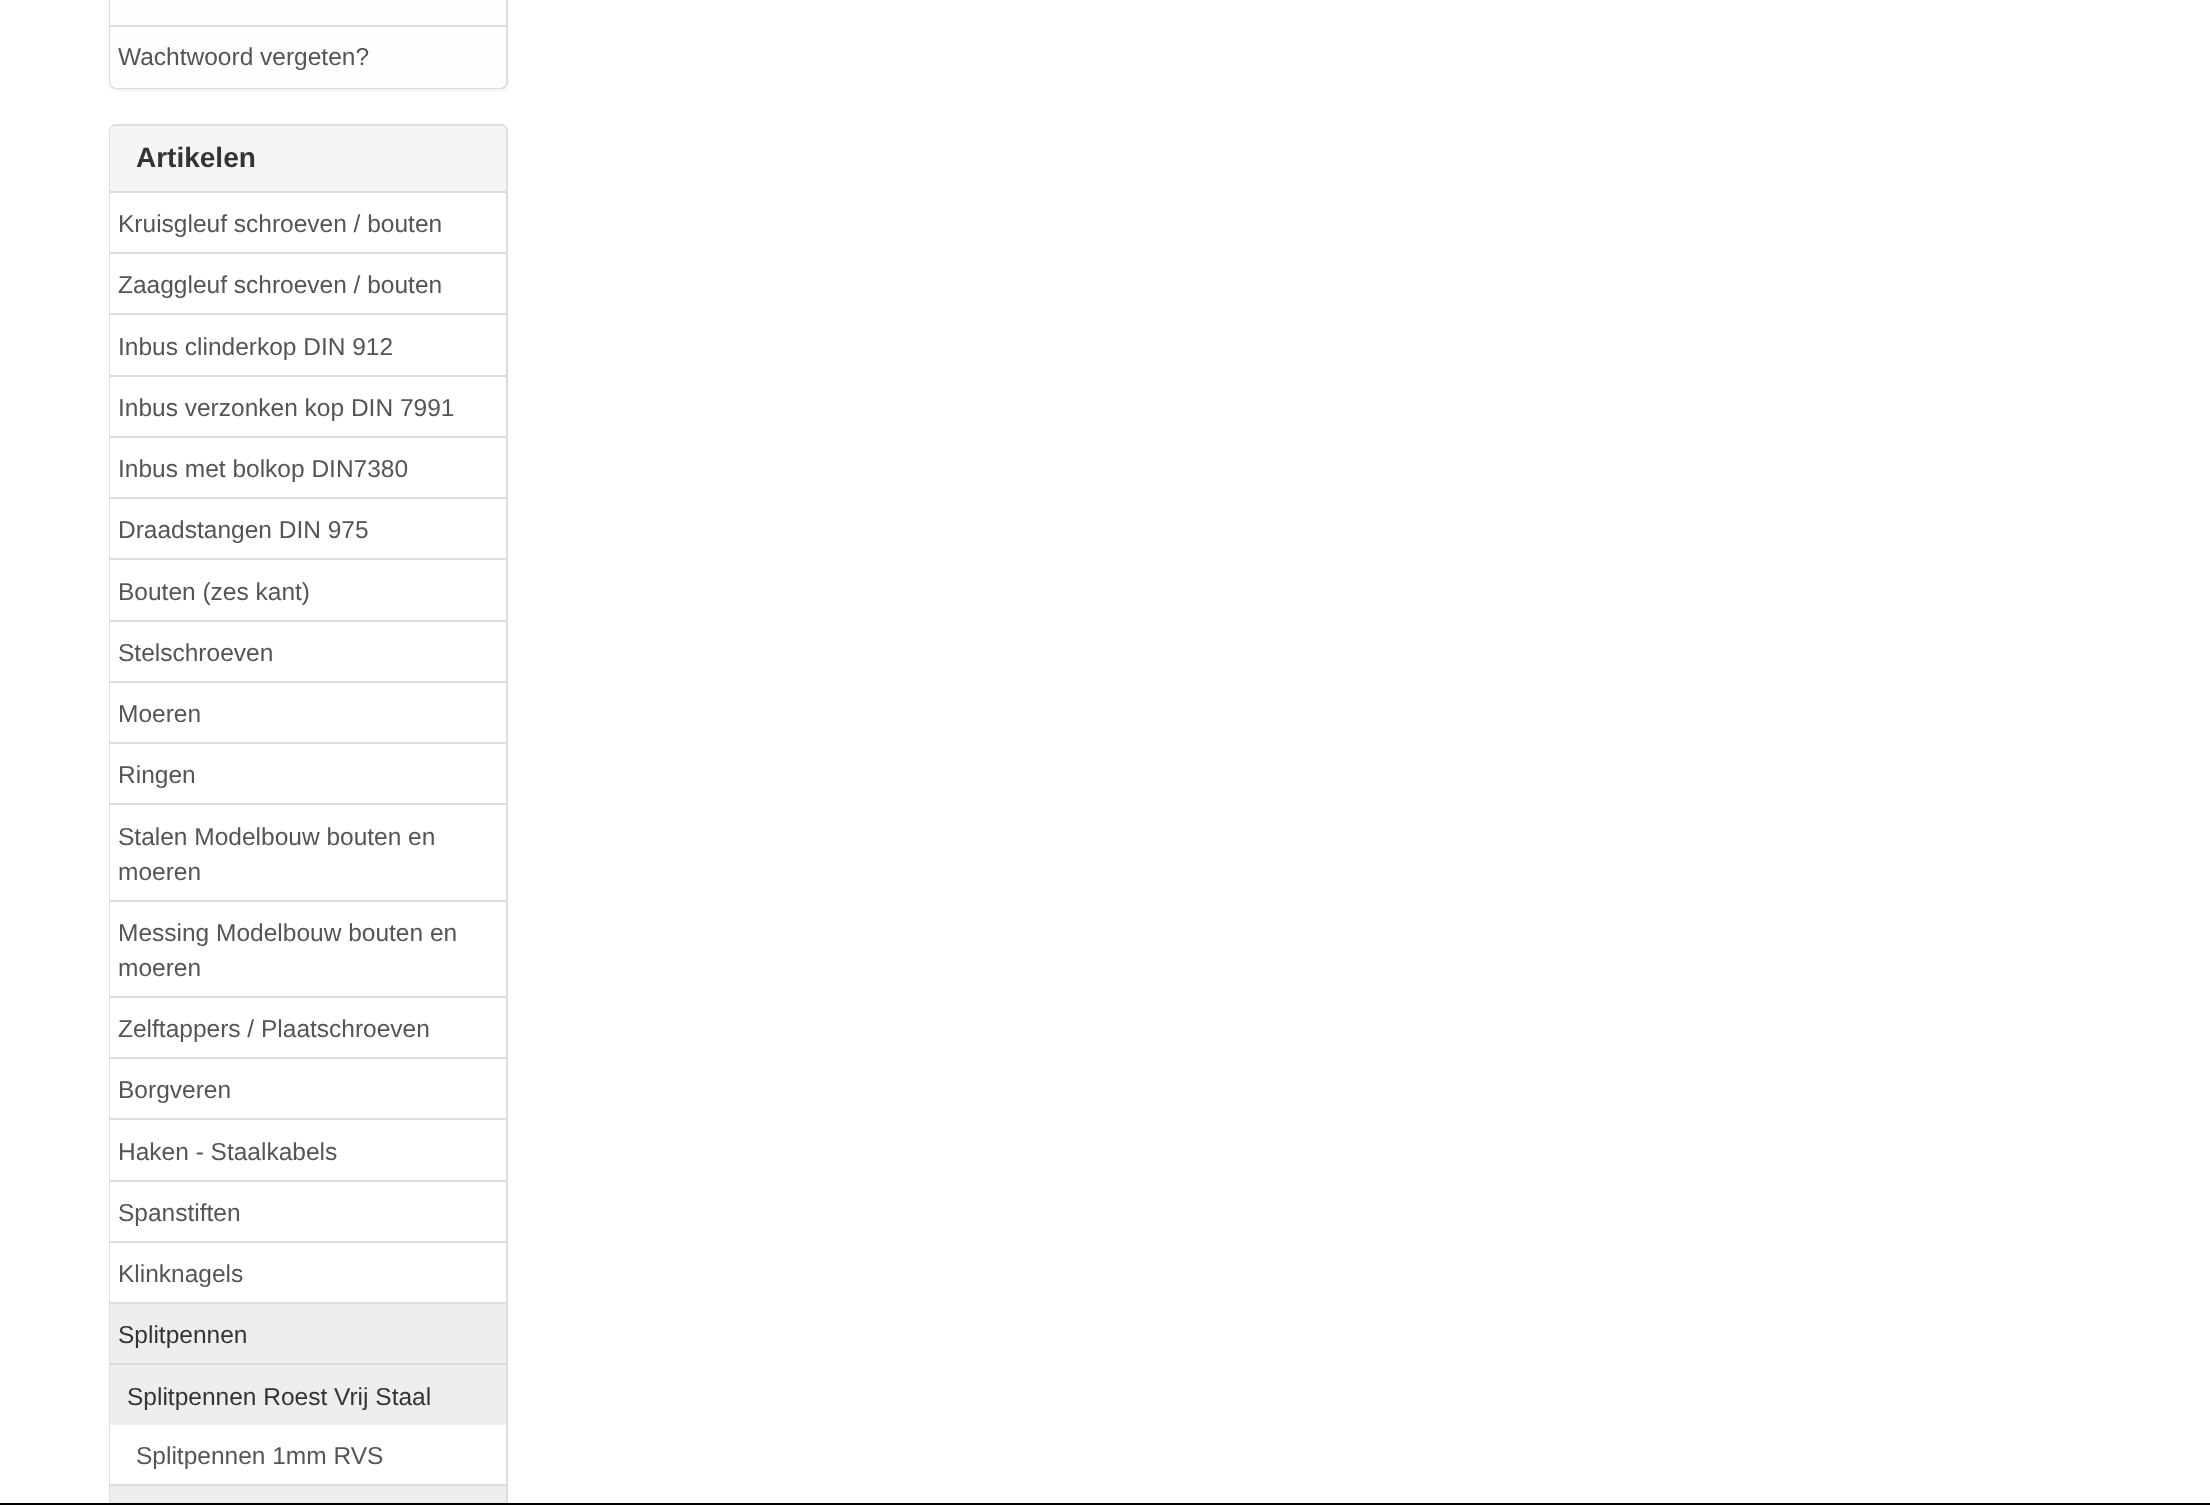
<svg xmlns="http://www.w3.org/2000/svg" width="2210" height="1505">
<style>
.a{font:24.5px Liberation Sans;fill:#555}
.b{font:bold 28px Liberation Sans;fill:#343434}
.c{font:24.5px Liberation Sans;fill:#343434}
</style>
<rect width="100%" height="100%" fill="#fff"/>
<rect fill="#0000000d" filter="blur(1px)" x="109" y="-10" width="399" height="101" rx="7"/>
<rect fill="#fefefe" stroke="#ddd" stroke-width="2" x="110" y="-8" width="397" height="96" rx="6"/>
<path fill="#fefefe" d="M110 0h1v25H110z"/>
<path fill="#fefefe" d="M110 25h396v56c0 4-3 7-7 7h-382c-4 0-7-3-7-7z"/>
<path fill="#ddd" d="M110 25h396v2H110z"/>
<rect fill="none" stroke="#ddd" stroke-width="2" x="110" y="125" width="397" height="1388" rx="6"/>
<path fill="#f5f5f5" d="M115 126h386c3 0 5 2 5 5v62h-396v-62c0-3 2-5 5-5z"/>
<path fill="#ddd" d="M110 191h396v2H110z"/>
<path fill="#fefefe" d="M110 193h1v59H110z"/>
<path fill="#fefefe" d="M110 254h1v59H110z"/>
<path fill="#ddd" d="M110 252h396v2H110z"/>
<path fill="#fefefe" d="M110 315h1v60H110z"/>
<path fill="#ddd" d="M110 313h396v2H110z"/>
<path fill="#fefefe" d="M110 377h1v59H110z"/>
<path fill="#ddd" d="M110 375h396v2H110z"/>
<path fill="#fefefe" d="M110 438h1v59H110z"/>
<path fill="#ddd" d="M110 436h396v2H110z"/>
<path fill="#fefefe" d="M110 499h1v59H110z"/>
<path fill="#ddd" d="M110 497h396v2H110z"/>
<path fill="#fefefe" d="M110 560h1v60H110z"/>
<path fill="#ddd" d="M110 558h396v2H110z"/>
<path fill="#fefefe" d="M110 622h1v59H110z"/>
<path fill="#ddd" d="M110 620h396v2H110z"/>
<path fill="#fefefe" d="M110 683h1v59H110z"/>
<path fill="#ddd" d="M110 681h396v2H110z"/>
<path fill="#fefefe" d="M110 744h1v59H110z"/>
<path fill="#ddd" d="M110 742h396v2H110z"/>
<path fill="#fefefe" d="M110 805h1v95H110z"/>
<path fill="#ddd" d="M110 803h396v2H110z"/>
<path fill="#fefefe" d="M110 902h1v94H110z"/>
<path fill="#ddd" d="M110 900h396v2H110z"/>
<path fill="#fefefe" d="M110 998h1v59H110z"/>
<path fill="#ddd" d="M110 996h396v2H110z"/>
<path fill="#fefefe" d="M110 1059h1v59H110z"/>
<path fill="#ddd" d="M110 1057h396v2H110z"/>
<path fill="#fefefe" d="M110 1120h1v60H110z"/>
<path fill="#ddd" d="M110 1118h396v2H110z"/>
<path fill="#fefefe" d="M110 1182h1v59H110z"/>
<path fill="#ddd" d="M110 1180h396v2H110z"/>
<path fill="#fefefe" d="M110 1243h1v59H110z"/>
<path fill="#ddd" d="M110 1241h396v2H110z"/>
<path fill="#eee" d="M110 1304h396v59H110z"/>
<path fill="#ddd" d="M110 1302h396v2H110z"/>
<path fill="#eee" d="M110 1365h396v60H110z"/>
<path fill="#ddd" d="M110 1363h396v2H110z"/>
<path fill="#fefefe" d="M110 1425h1v59H110z"/>
<path fill="#eee" d="M110 1486h396v17H110z"/>
<path fill="#ddd" d="M110 1484h396v2H110z"/>
<path fill="#000" d="M0 1503h2210v2H0z"/>
<text class="a" x="118" y="65">Wachtwoord vergeten?</text>
<text class="b" x="136" y="167">Artikelen</text>
<text class="a" x="118" y="232">Kruisgleuf schroeven / bouten</text>
<text class="a" x="118" y="293">Zaaggleuf schroeven / bouten</text>
<text class="a" x="118" y="355">Inbus clinderkop DIN 912</text>
<text class="a" x="118" y="416">Inbus verzonken kop DIN 7991</text>
<text class="a" x="118" y="477">Inbus met bolkop DIN7380</text>
<text class="a" x="118" y="538">Draadstangen DIN 975</text>
<text class="a" x="118" y="600">Bouten (zes kant)</text>
<text class="a" x="118" y="661">Stelschroeven</text>
<text class="a" x="118" y="722">Moeren</text>
<text class="a" x="118" y="783">Ringen</text>
<text class="a" x="118" y="845">Stalen Modelbouw bouten en</text>
<text class="a" x="118" y="880">moeren</text>
<text class="a" x="118" y="941">Messing Modelbouw bouten en</text>
<text class="a" x="118" y="976">moeren</text>
<text class="a" x="118" y="1037">Zelftappers / Plaatschroeven</text>
<text class="a" x="118" y="1098">Borgveren</text>
<text class="a" x="118" y="1160">Haken - Staalkabels</text>
<text class="a" x="118" y="1221">Spanstiften</text>
<text class="a" x="118" y="1282">Klinknagels</text>
<text class="c" x="118" y="1343">Splitpennen</text>
<text class="c" x="127" y="1405">Splitpennen Roest Vrij Staal</text>
<text class="a" x="136" y="1464">Splitpennen 1mm RVS</text>
</svg>
